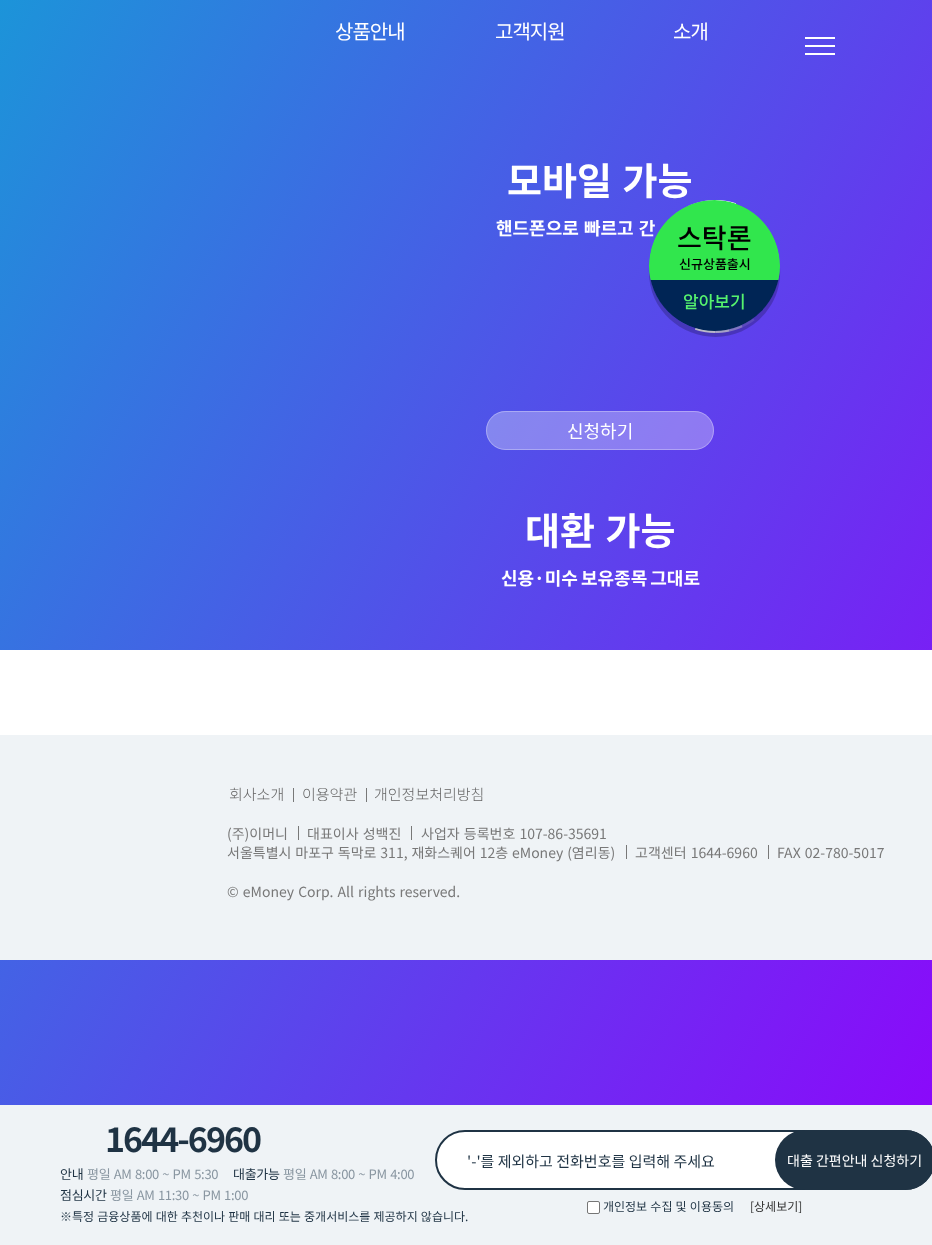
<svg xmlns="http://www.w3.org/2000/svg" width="932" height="1245">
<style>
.a{font:20px Noto Sans KR;letter-spacing:-1px;fill:#fff}
.b{font:bold 38px Noto Sans KR;fill:#fff}
.c{font:bold 18px Noto Sans KR;fill:#fff}
.d{font:18px Noto Sans KR;fill:#fff}
.e{font:500 27px Noto Sans KR;fill:#000}
.f{font:500 13px Noto Sans KR;fill:#000}
.g{font:500 17px Noto Sans KR;fill:#55f26e}
.h{font:300 15px Noto Sans KR;fill:#656565}
.i{font:14px Noto Sans KR;fill:#787878}
.j{font:bold 34px Noto Sans KR;letter-spacing:-2px;fill:#1f3344}
.k{font:13px Noto Sans KR;letter-spacing:-0.3px;fill:#1f3344}
.l{font:13px Noto Sans KR;letter-spacing:-0.3px;fill:#8996a1}
.m{font:12px Noto Sans KR;fill:#1f3344}
.n{font:15px Noto Sans KR;fill:#1f3344}
.o{font:14px Noto Sans KR;fill:#fff}
.p{font:12px Noto Sans KR;fill:#333}
</style>
<defs>
<linearGradient id="g1" gradientUnits="userSpaceOnUse" x1="-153" y1="265" x2="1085" y2="980"><stop offset="0" stop-color="#1c94d9"/><stop offset="1" stop-color="#9002fc"/></linearGradient>
<clipPath id="clip1"><rect x="649" y="200" width="131" height="131" rx="65.5"/></clipPath>
</defs>
<rect width="100%" height="100%" fill="#fff"/>
<path fill="url(#g1)" d="M0 0h932v1105H0z"/>
<path fill="#fff" d="M805 45h30v2H805z"/>
<path fill="#fff" d="M805 37h30v2H805z"/>
<path fill="#fff" d="M805 53h30v2H805z"/>
<rect fill="#ffffff4d" x="486" y="411" width="228" height="39" rx="19.5"/>
<rect fill="none" stroke="#ffffff4d" x="486.5" y="411.5" width="227" height="38" rx="19"/>
<path fill="#eff3f6" d="M0 735h932v225H0z"/>
<image href="1.png" x="676" y="200" width="79" height="133"/>
<path fill="#19154a4d" d="M649 268c-3 66 83 95 120 40c8-11 12-26 11-40c-2 35-30 63-66 63c-35 0-63-28-65-63z"/>
<g clip-path="url(#clip1)">
<path fill="#002555" d="M650 280h129v51H650z"/>
</g>
<path fill="#787878" d="M293 788h1v14H293z"/>
<path fill="#787878" d="M366 788h1v14H366z"/>
<path fill="#787878" d="M298 826h1v14H298z"/>
<path fill="#787878" d="M411 826h1v14H411z"/>
<path fill="#787878" d="M626 845h1v14H626z"/>
<path fill="#787878" d="M768 845h1v14H768z"/>
<path fill="#fff" d="M0 650h932v85H0z"/>
<path fill="#eff3f6" d="M0 1105h932v140H0z"/>
<rect fill="#fff" stroke="#1f3344" stroke-width="2" x="436" y="1131" width="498" height="58" rx="29"/>
<rect fill="#1f3344" x="775" y="1130" width="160" height="60" rx="30"/>
<rect fill="#fff" stroke="#767676" x="587.5" y="1201.5" width="12" height="12" rx="1.5"/>
<text class="a" x="335" y="39">상품안내</text>
<text class="a" x="495" y="39">고객지원</text>
<text class="a" x="673" y="39">소개</text>
<text class="b" x="507" y="195" word-spacing="2">모바일 가능</text>
<text class="c" x="496" y="235" word-spacing="1">핸드폰으로 빠르고 간</text>
<text class="d" x="567" y="438">신청하기</text>
<text class="b" x="525" y="545" word-spacing="2">대환 가능</text>
<text class="c" x="501" y="585" word-spacing="-1">신용·미수 보유종목 그대로</text>
<g clip-path="url(#clip1)">
<path fill="#31e64d" d="M714.5 200c36 0 65.5 29.5 65.5 65.5v14.5h-131v-14.5c0-36 29.5-65.5 65.5-65.5z"/>
</g>
<text class="e" x="677" y="248">스탁론</text>
<text class="f" x="679" y="269">신규상품출시</text>
<text class="g" x="683" y="308">알아보기</text>
<text class="h" x="229" y="800">회사소개</text>
<text class="h" x="302" y="800">이용약관</text>
<text class="h" x="374" y="800">개인정보처리방침</text>
<text class="i" x="227" y="839">(주)이머니</text>
<text class="i" x="307" y="839" word-spacing="1">대표이사 성백진</text>
<text class="i" x="421" y="839" word-spacing="1">사업자 등록번호 107-86-35691</text>
<text class="i" x="227" y="858" word-spacing="0.75">서울특별시 마포구 독막로 311, 재화스퀘어 12층 eMoney (염리동)</text>
<text class="i" x="635" y="858" word-spacing="1">고객센터 1644-6960</text>
<text class="i" x="777" y="858" word-spacing="1">FAX 02-780-5017</text>
<text class="i" x="227" y="897" word-spacing="1">© eMoney Corp. All rights reserved.</text>
<text class="j" x="105" y="1152">1644-6960</text>
<text class="k" x="60" y="1179">안내</text>
<text class="l" x="87" y="1179" word-spacing="0.75">평일 AM 8:00 ~ PM 5:30</text>
<text class="k" x="233" y="1179">대출가능</text>
<text class="l" x="283" y="1179" word-spacing="0.75">평일 AM 8:00 ~ PM 4:00</text>
<text class="k" x="60" y="1200">점심시간</text>
<text class="l" x="110" y="1200" word-spacing="0.75">평일 AM 11:30 ~ PM 1:00</text>
<text class="m" x="60" y="1221" word-spacing="0.5">※특정 금융상품에 대한 추천이나 판매 대리 또는 중개서비스를 제공하지 않습니다.</text>
<text class="n" x="467" y="1167">'-'를 제외하고 전화번호를 입력해 주세요</text>
<text class="o" x="787" y="1166">대출 간편안내 신청하기</text>
<text class="m" x="603" y="1211" word-spacing="0.5">개인정보 수집 및 이용동의</text>
<text class="p" x="750" y="1211">[상세보기]</text>
</svg>
